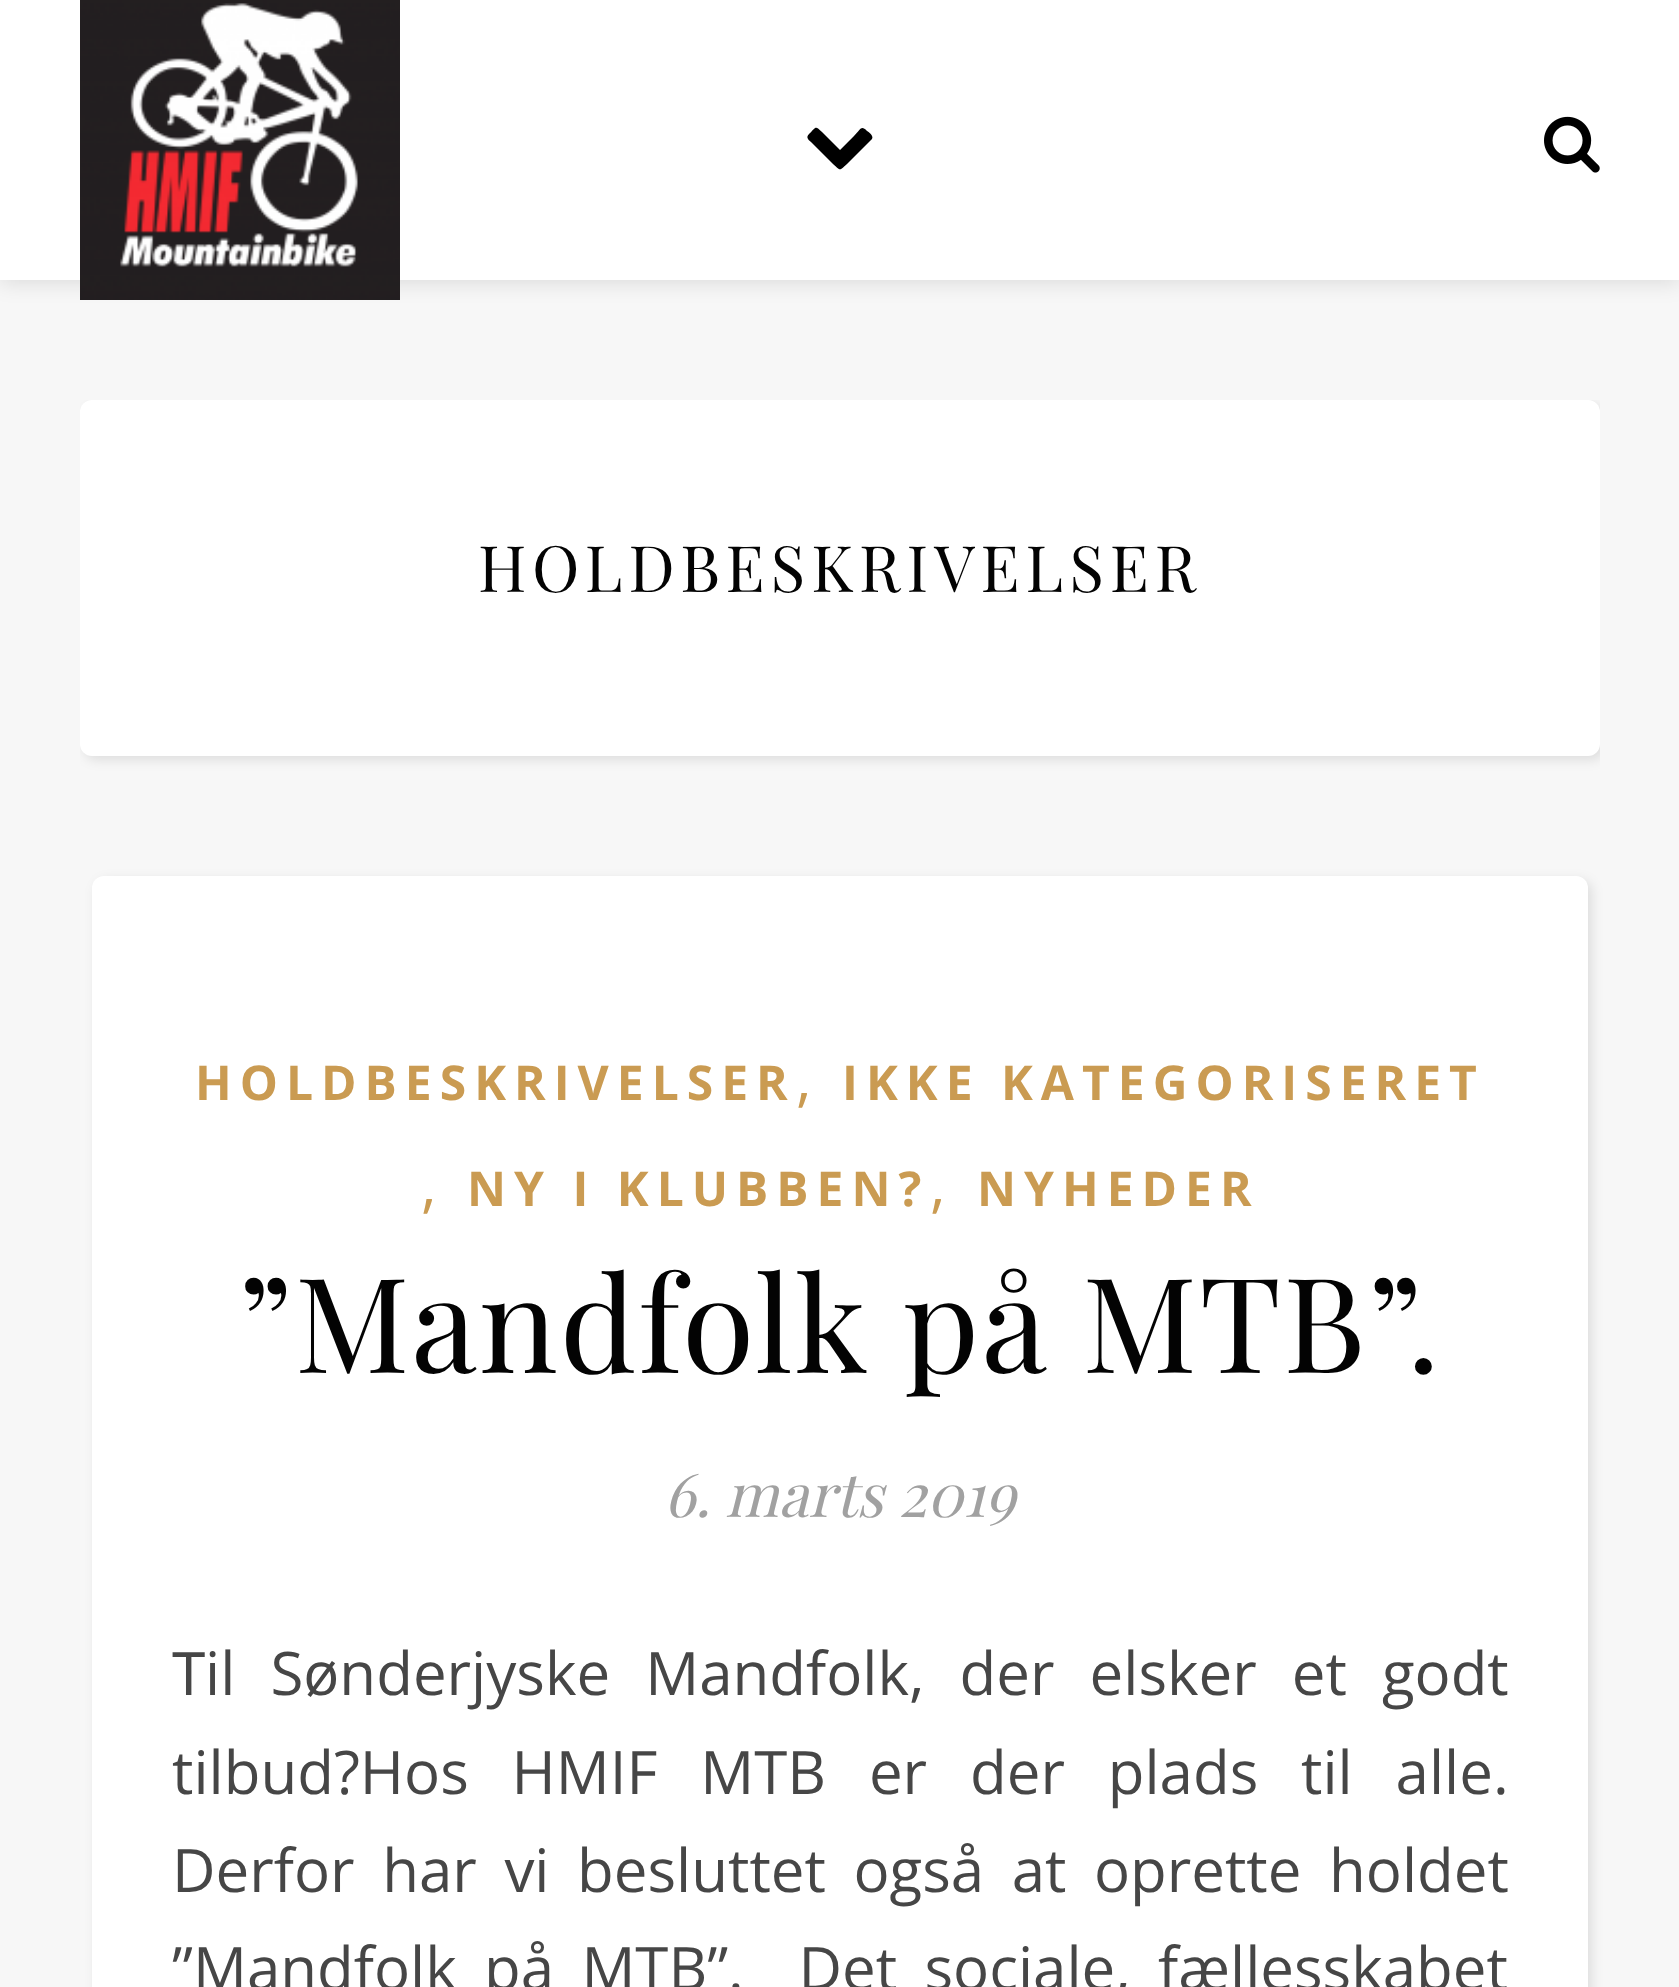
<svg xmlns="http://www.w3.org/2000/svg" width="1679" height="1987">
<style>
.a{font:64px Playfair Display;letter-spacing:6px;fill:#030303}
.b{font:bold 48px Open Sans;letter-spacing:8px;fill:#ca9b52}
.c{font:60px Open Sans;fill:#ca9b52}
.d{font:132px Playfair Display;letter-spacing:2px;fill:#030303}
.e{font:italic 60px Playfair Display;fill:#a1a1a1}
.f{font:60px Noto Sans;fill:#464646}
.g{font:60px Open Sans;fill:#464646}
</style>
<defs>
<clipPath id="clip1"><path d="M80 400h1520v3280H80z"/></clipPath>
</defs>
<rect width="100%" height="100%" fill="#f7f7f7"/>
<path fill="#0000001a" filter="blur(10px)" d="M0 4h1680v280H0z"/>
<path fill="#fff" d="M0 0h1679v280H0z"/>
<image href="1.png" x="80" y="0" width="320" height="300"/>
<path fill="#000" d="M872 139l-25 25c-8 7-6 7-14 0l-20-20c-4-4-8-6-4-10c7-7 6-9 13-2l18 18l14-14c7-7 7-11 13-5c2 1 7 5 5 8z"/>
<image href="2.png" x="1544" y="116" width="56" height="57"/>
<g clip-path="url(#clip1)">
<rect fill="#0000001a" filter="blur(6px)" x="84" y="404" width="1520" height="356" rx="12"/>
</g>
<rect fill="#fff" x="80" y="400" width="1520" height="356" rx="12"/>
<rect fill="#0000001a" filter="blur(6px)" x="96" y="880" width="1496" height="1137" rx="12"/>
<rect fill="#fff" x="92" y="876" width="1496" height="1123" rx="12"/>
<text class="a" x="478" y="592">HOLDBESKRIVELSER</text>
<text class="b" x="195" y="1100">HOLDBESKRIVELSER</text>
<text class="c" x="796" y="1100">,</text>
<text class="b" x="842" y="1100">IKKE KATEGORISERET</text>
<text class="c" x="421" y="1206">,</text>
<text class="b" x="467" y="1206">NY I KLUBBEN?</text>
<text class="c" x="930" y="1206">,</text>
<text class="b" x="977" y="1206">NYHEDER</text>
<text class="d" x="238" y="1373">”Mandfolk på MTB”.</text>
<text class="e" x="664" y="1517">6. marts 2019</text>
<text class="f" x="172" y="1695">T</text>
<text class="g" x="205" y="1695" word-spacing="19.5">il Sønderjyske Mandfolk, der elsker et godt</text>
<text class="g" x="172" y="1794" word-spacing="27.25">tilbud?Hos HMIF MTB er der plads til alle.</text>
<text class="g" x="172" y="1892" word-spacing="12">Derfor har vi besluttet også at oprette holdet</text>
<text class="g" xml:space="preserve" x="172" y="1990" word-spacing="11.75">”Mandfolk på MTB”.  Det sociale, fællesskabet</text>
</svg>
